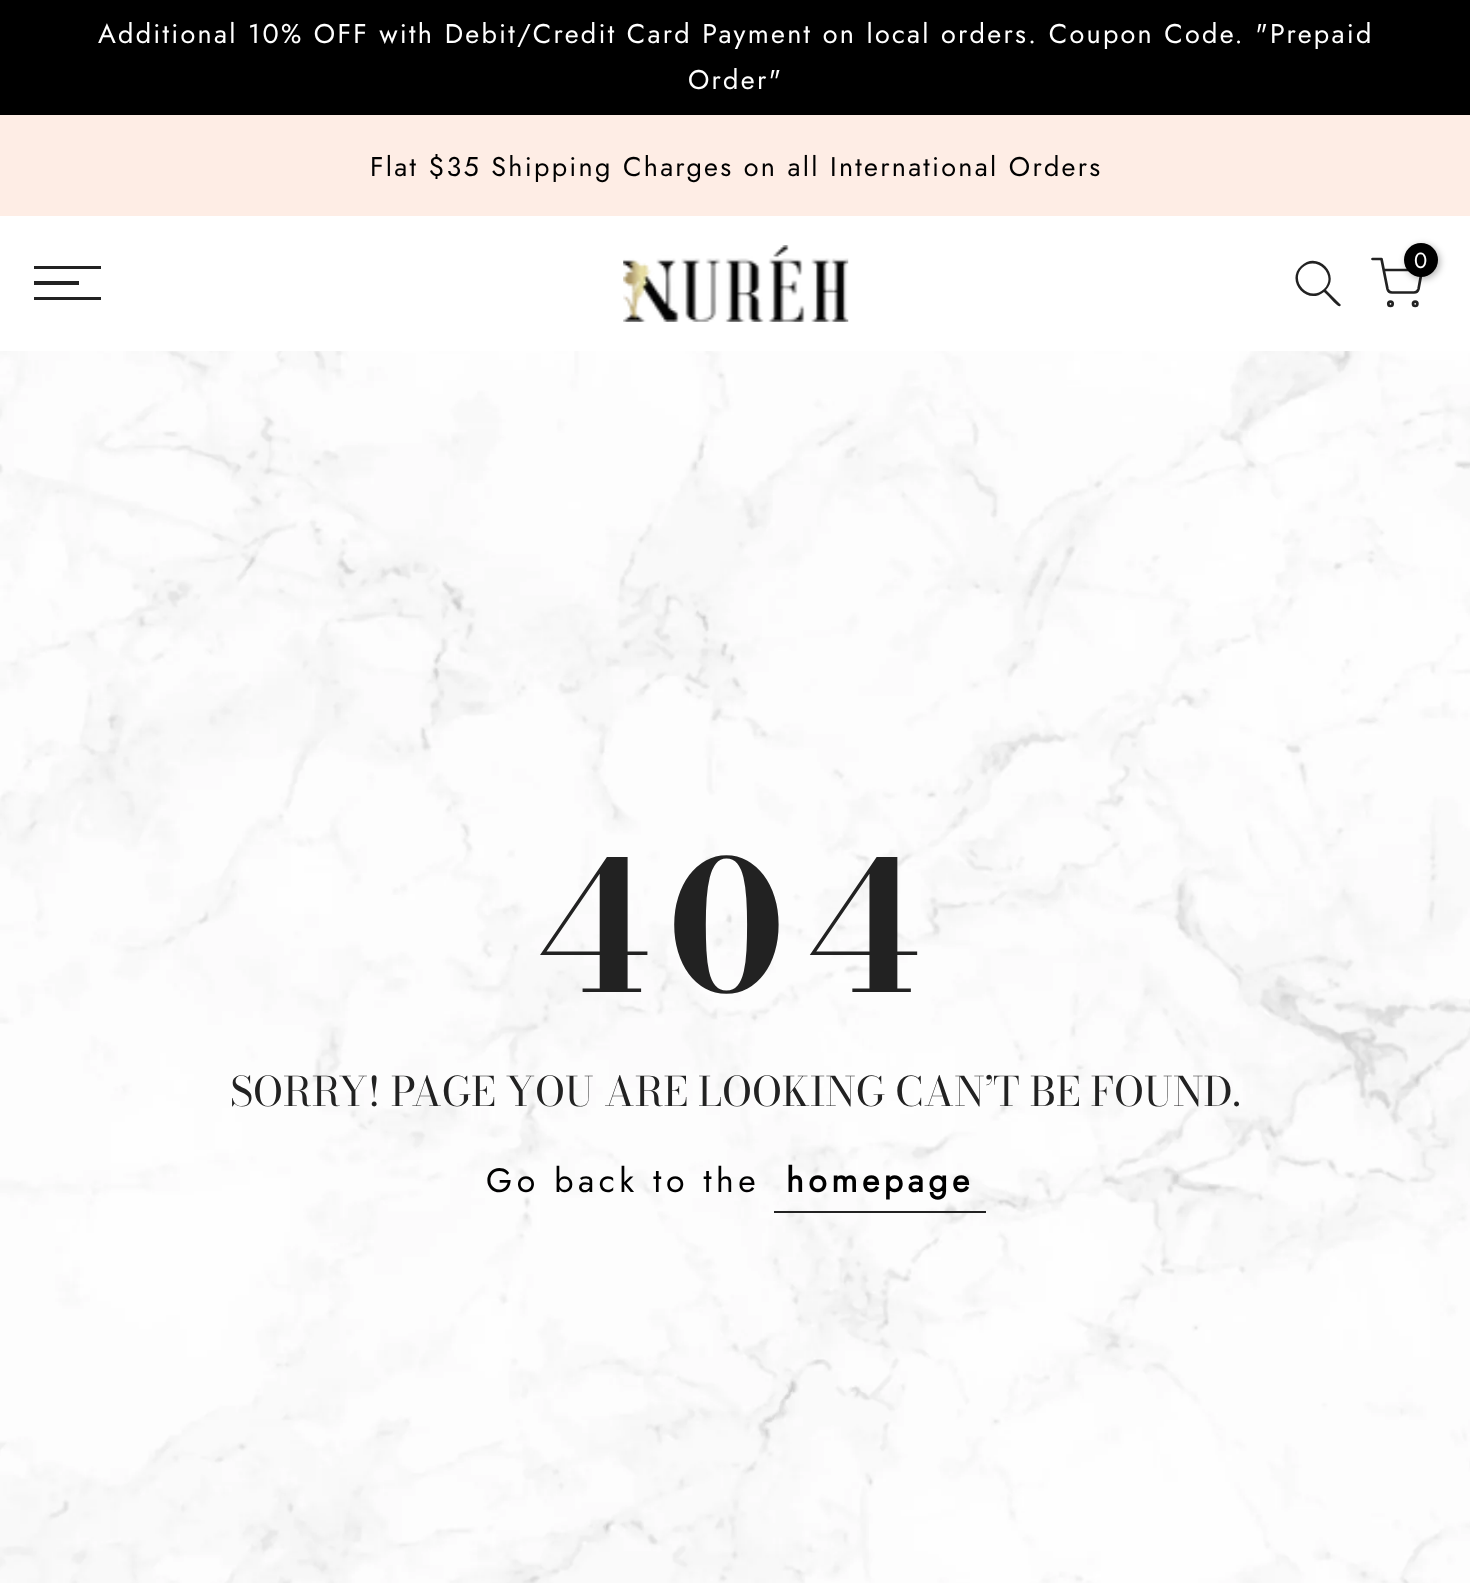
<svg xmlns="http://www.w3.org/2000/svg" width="1470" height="1583">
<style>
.a{font:27px Jost;letter-spacing:2.25px;fill:#fff}
.b{font:27px Jost;letter-spacing:2.25px;fill:#000}
.c{font:22px Jost;fill:#fff}
.d{font:bold 180px Bodoni Moda;letter-spacing:18px;fill:#222}
.e{font:40.5px Bodoni Moda;fill:#222}
.f{font:33.75px Jost;letter-spacing:4.5px;fill:#000}
.g{font:bold 33.75px Jost;letter-spacing:4.5px;fill:#000}
</style>
<rect width="100%" height="100%" fill="#fff"/>
<path fill="#000" d="M0 0h1470v115H0z"/>
<path fill="#feede5" d="M0 115h1470v101H0z"/>
<image href="1.png" x="623" y="245" width="226" height="77"/>
<path fill="#222" fill-rule="evenodd" d="M1324 289c-14 14-35-7-22-21c14-14 36 7 22 21zm0 3c-17 14-39-11-23-26c16-16 40 8 25 24l15 15l-1 1c-2 2-13-12-16-14z"/>
<path fill="none" stroke="#222" stroke-width="2.7" stroke-linecap="round" stroke-linejoin="round" d="M1372.5 259h9l6 30c.5 2 2.5 3.5 4.5 3.5h22c2 0 4-1.5 4.5-3.5l3.5-19h-38"/>
<rect fill="#0000004d" filter="blur(3.5px)" x="1406" y="245" width="34" height="34" rx="17"/>
<circle fill="#000" cx="1421" cy="260" r="17"/>
<circle fill="none" stroke="#222" stroke-width="2.7" cx="1390.5" cy="303.8" r="2.2"/>
<circle fill="none" stroke="#222" stroke-width="2.7" cx="1415.2" cy="303.8" r="2.2"/>
<path fill="#222" d="M34 266h67v3H34z"/>
<path fill="#222" d="M34 281h45v4H34z"/>
<path fill="#222" d="M34 297h67v3H34z"/>
<image href="2.png" x="0" y="351" width="1470" height="1232"/>
<path fill="#222" d="M774 1211h212v2H774z"/>
<text class="a" x="98" y="43">Additional 10% OFF with Debit/Credit Card Payment on local orders. Coupon Code. "Prepaid</text>
<text class="a" x="688" y="89">Order"</text>
<text class="b" x="370" y="176">Flat $35 Shipping Charges on all International Orders</text>
<text class="c" x="1414" y="268">0</text>
<text class="d" x="534" y="992">404</text>
<text class="e" x="230" y="1106">SORRY! PAGE YOU ARE LOOKING CAN’T BE FOUND.</text>
<text class="f" x="486" y="1192">Go back to the</text>
<text class="g" x="786" y="1192">homepage</text>
</svg>
